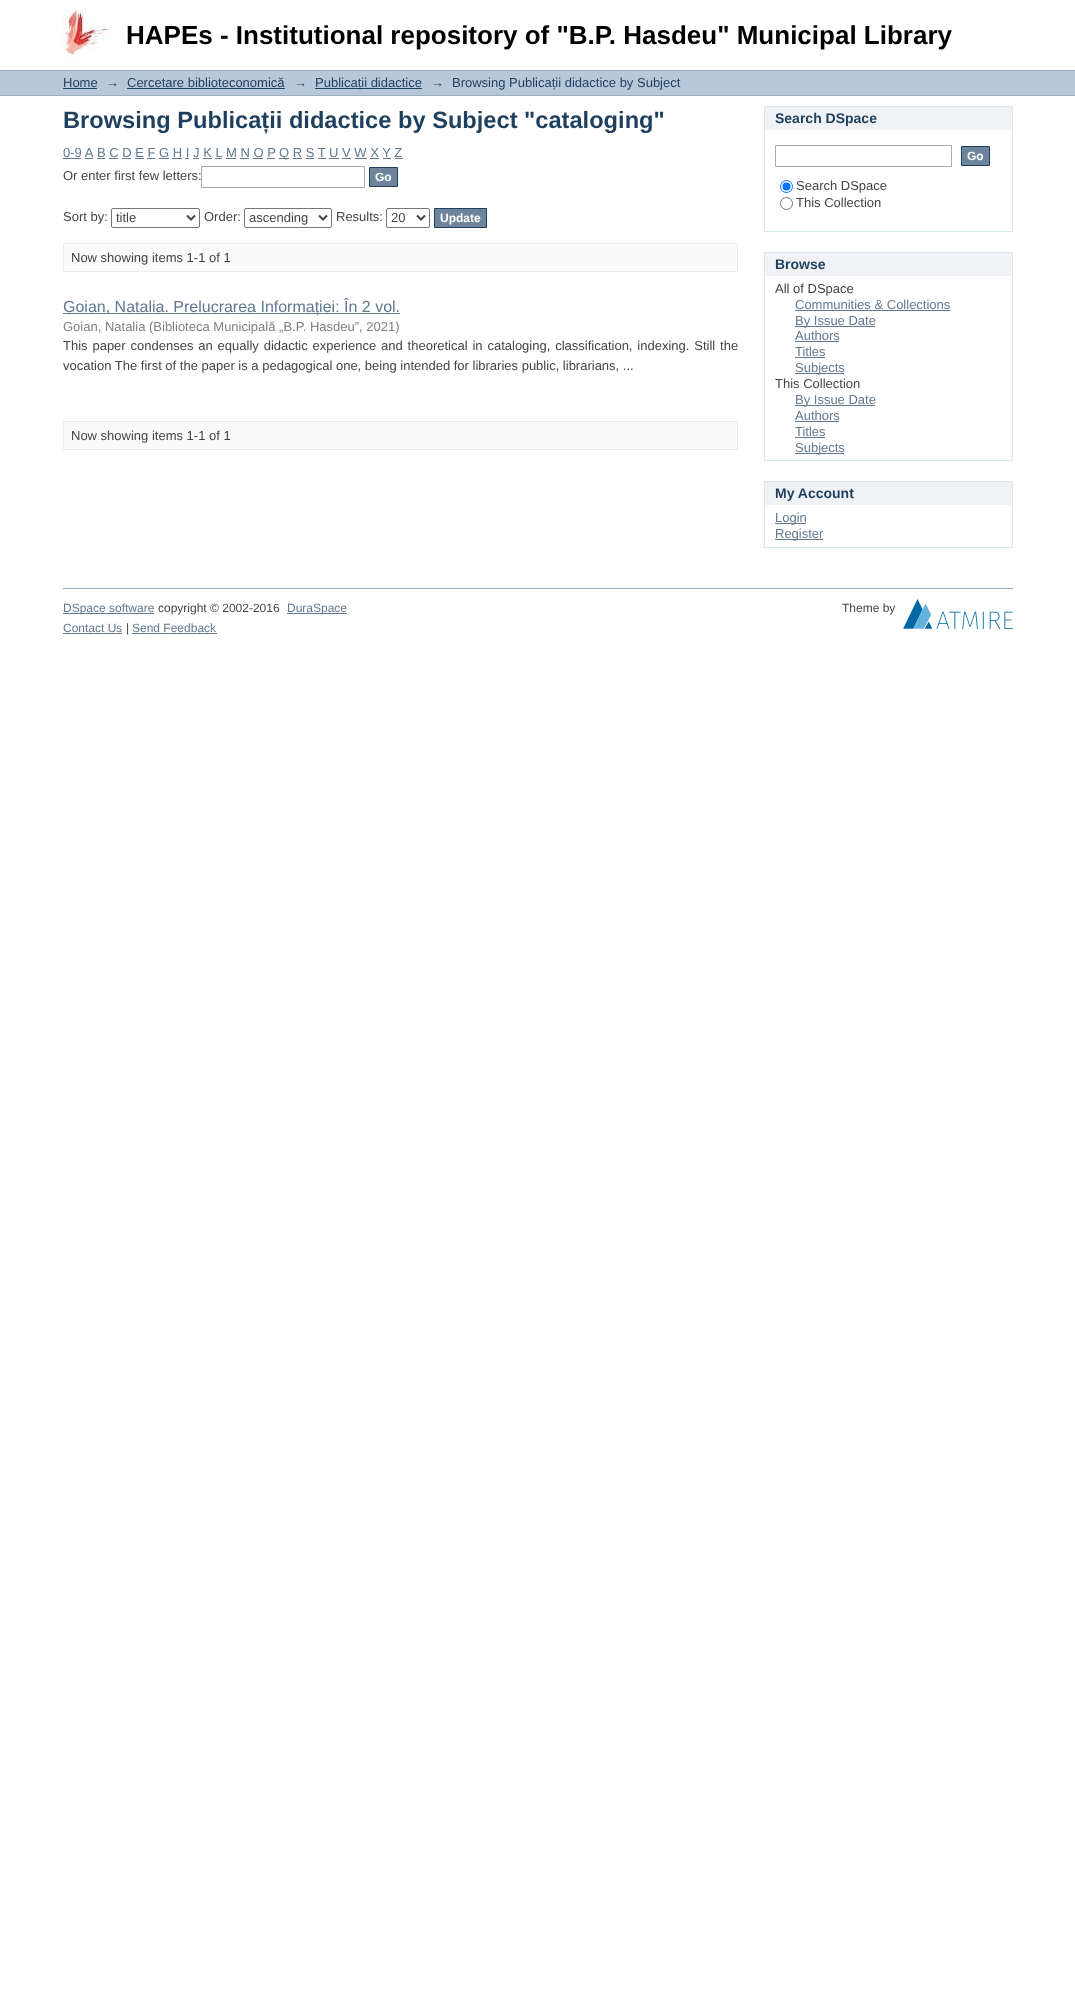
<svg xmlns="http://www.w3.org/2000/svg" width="1075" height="1996">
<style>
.a{font:bold 26px Liberation Sans;fill:#000}
.b{font:13px Liberation Sans;fill:#1f3f5e}
.c{font:bold 23.65px Liberation Sans;fill:#1f3f5e}
.d{font:13px Liberation Sans;fill:#607890}
.e{font:13px Liberation Sans;fill:#444}
.f{font:bold 12px Liberation Sans;fill:#fff}
.g{font:16px Liberation Sans;fill:#607890}
.h{font:13px Liberation Sans;fill:#808080}
.i{font:bold 14px Liberation Sans;fill:#1f3f5e}
.j{font:12px Liberation Sans;fill:#607890}
.k{font:12px Liberation Sans;fill:#444}
</style>
<rect width="100%" height="100%" fill="#fff"/>
<image href="1.png" x="63" y="10" width="48" height="48"/>
<path fill="#b6c8d9" d="M0 71h1075v24H0z"/>
<path fill="#9cacba" d="M0 70h1075v1H0z"/>
<path fill="#9cacba" d="M0 95h1075v1H0z"/>
<path fill="#1f3f5e" d="M63 88h34v1H63z"/>
<path fill="#1f3f5e" d="M127 88h158v1H127z"/>
<path fill="#1f3f5e" d="M315 88h107v1H315z"/>
<path fill="#607890" d="M63 158h18v1H63z"/>
<path fill="#607890" d="M97 158h8v1H97z"/>
<path fill="#607890" d="M226 158h10v1H226z"/>
<path fill="#607890" d="M279 158h10v1H279z"/>
<path fill="#607890" d="M85 158h8v1H85z"/>
<path fill="#607890" d="M109 158h9v1H109z"/>
<path fill="#607890" d="M122 158h9v1H122z"/>
<path fill="#607890" d="M135 158h9v1H135z"/>
<path fill="#607890" d="M147 158h8v1H147z"/>
<path fill="#607890" d="M159 158h10v1H159z"/>
<path fill="#607890" d="M172 158h10v1H172z"/>
<path fill="#607890" d="M185 158h4v1H185z"/>
<path fill="#607890" d="M193 158h6v1H193z"/>
<path fill="#607890" d="M203 158h9v1H203z"/>
<path fill="#607890" d="M215 158h7v1H215z"/>
<path fill="#607890" d="M240 158h9v1H240z"/>
<path fill="#607890" d="M253 158h10v1H253z"/>
<path fill="#607890" d="M267 158h8v1H267z"/>
<path fill="#607890" d="M293 158h9v1H293z"/>
<path fill="#607890" d="M306 158h8v1H306z"/>
<path fill="#607890" d="M318 158h8v1H318z"/>
<path fill="#607890" d="M329 158h10v1H329z"/>
<path fill="#607890" d="M342 158h9v1H342z"/>
<path fill="#607890" d="M355 158h12v1H355z"/>
<path fill="#607890" d="M370 158h9v1H370z"/>
<path fill="#607890" d="M383 158h8v1H383z"/>
<path fill="#607890" d="M395 158h8v1H395z"/>
<path fill="none" stroke="#aaa" d="M201.5 166.5h163v21H201.5z"/>
<path fill="#6d859c" stroke="#1f3f5e" d="M369.5 167.5h28v19H369.5z"/>
<rect fill="none" stroke="#767676" x="111.5" y="208.5" width="88" height="19" rx="1.5"/>
<path fill="none" stroke="#444" stroke-width="2" d="M187 215.5l4 4l4-4"/>
<rect fill="none" stroke="#767676" x="244.5" y="208.5" width="87" height="19" rx="1.5"/>
<path fill="none" stroke="#444" stroke-width="2" d="M319 215.5l4 4l4-4"/>
<rect fill="none" stroke="#767676" x="386.5" y="208.5" width="43" height="19" rx="1.5"/>
<path fill="none" stroke="#444" stroke-width="2" d="M417 215.5l4 4l4-4"/>
<path fill="#6d859c" stroke="#1f3f5e" d="M434.5 208.5h52v19H434.5z"/>
<path fill="#fafafa" stroke="#ebebeb" d="M63.5 243.5h674v28H63.5z"/>
<path fill="#607890" d="M63 313h337v1H63z"/>
<path fill="#fafafa" stroke="#ebebeb" d="M63.5 421.5h674v28H63.5z"/>
<path fill="#f0f2f5" d="M765 107h247v23H765z"/>
<path fill="#d8e8eb" d="M764 106h249v1H764z"/>
<path fill="#d8e8eb" d="M1012 106h1v126H1012z"/>
<path fill="#d8e8eb" d="M764 106h1v24H764z"/>
<path fill="#d8e8eb" d="M764 231h249v1H764z"/>
<path fill="#d8e8eb" d="M764 130h1v102H764z"/>
<path fill="none" stroke="#aaa" d="M775.5 145.5h176v21H775.5z"/>
<path fill="#6d859c" stroke="#1f3f5e" d="M961.5 146.5h28v19H961.5z"/>
<circle fill="none" stroke="#0075ff" cx="786.5" cy="186.5" r="6"/>
<circle fill="#0075ff" cx="786.5" cy="186.5" r="4"/>
<circle fill="none" stroke="#767676" cx="786.5" cy="203.5" r="6"/>
<path fill="#f0f2f5" d="M765 253h247v23H765z"/>
<path fill="#d8e8eb" d="M764 252h249v1H764z"/>
<path fill="#d8e8eb" d="M1012 252h1v209H1012z"/>
<path fill="#d8e8eb" d="M764 252h1v24H764z"/>
<path fill="#d8e8eb" d="M764 460h249v1H764z"/>
<path fill="#d8e8eb" d="M764 276h1v185H764z"/>
<path fill="#607890" d="M795 310h155v1H795z"/>
<path fill="#607890" d="M795 326h80v1H795z"/>
<path fill="#607890" d="M795 341h44v1H795z"/>
<path fill="#607890" d="M795 357h30v1H795z"/>
<path fill="#607890" d="M795 373h49v1H795z"/>
<path fill="#607890" d="M795 405h80v1H795z"/>
<path fill="#607890" d="M795 421h44v1H795z"/>
<path fill="#607890" d="M795 437h30v1H795z"/>
<path fill="#607890" d="M795 453h49v1H795z"/>
<path fill="#f0f2f5" d="M765 482h247v23H765z"/>
<path fill="#d8e8eb" d="M764 481h249v1H764z"/>
<path fill="#d8e8eb" d="M1012 481h1v67H1012z"/>
<path fill="#d8e8eb" d="M764 481h1v24H764z"/>
<path fill="#d8e8eb" d="M764 547h249v1H764z"/>
<path fill="#d8e8eb" d="M764 505h1v43H764z"/>
<path fill="#607890" d="M775 523h31v1H775z"/>
<path fill="#607890" d="M775 539h48v1H775z"/>
<path fill="#9cacba" d="M63 588h950v1H63z"/>
<path fill="#607890" d="M63 613h91v1H63z"/>
<path fill="#607890" d="M287 613h60v1H287z"/>
<image href="2.png" x="903" y="599" width="110" height="30"/>
<path fill="#607890" d="M63 633h59v1H63z"/>
<path fill="#607890" d="M132 633h85v1H132z"/>
<text class="a" x="126" y="44">HAPEs - Institutional repository of "B.P. Hasdeu" Municipal Library</text>
<text class="b" x="63" y="87">Home</text>
<text class="b" x="106" y="87">→</text>
<text class="b" x="127" y="87">Cercetare biblioteconomică</text>
<text class="b" x="294" y="87">→</text>
<text class="b" x="315" y="87">Publicații didactice</text>
<text class="b" x="431" y="87">→</text>
<text class="b" x="452" y="87">Browsing Publicații didactice by Subject</text>
<text class="c" x="63" y="128">Browsing Publicații didactice by Subject "cataloging"</text>
<text class="d" x="63" y="157">0-9 A</text>
<text class="d" x="97" y="157">B C D E F G H I J K L</text>
<text class="d" x="226" y="157">M N O P</text>
<text class="d" x="279" y="157">Q R S T U V W X Y Z</text>
<text class="e" x="63" y="180">Or enter first few letters:</text>
<text class="f" x="375" y="181">Go</text>
<text class="e" x="63" y="221">Sort by:</text>
<text class="e" x="116" y="222">title</text>
<text class="e" x="204" y="221">Order:</text>
<text class="e" x="249" y="222">ascending</text>
<text class="e" x="336" y="221">Results:</text>
<text class="e" x="391" y="222">20</text>
<text class="f" x="440" y="222">Update</text>
<text class="e" x="71" y="262">Now showing items 1-1 of 1</text>
<text class="g" x="63" y="312">Goian, Natalia. Prelucrarea Informației: În 2 vol.</text>
<text class="h" x="63" y="331">Goian, Natalia (Biblioteca Municipală „B.P. Hasdeu”, 2021)</text>
<text class="e" x="63" y="350" word-spacing="1.25">This paper condenses an equally didactic experience and theoretical in cataloging, classification, indexing. Still the</text>
<text class="e" x="63" y="370">vocation The first of the paper is a pedagogical one, being intended for libraries public, librarians, ...</text>
<text class="e" x="71" y="440">Now showing items 1-1 of 1</text>
<text class="i" x="775" y="123">Search DSpace</text>
<text class="f" x="967" y="160">Go</text>
<text class="e" x="796" y="190">Search DSpace</text>
<text class="e" x="796" y="207">This Collection</text>
<text class="i" x="775" y="269">Browse</text>
<text class="e" x="775" y="293">All of DSpace</text>
<text class="d" x="795" y="309">Communities &amp; Collections</text>
<text class="d" x="795" y="325">By Issue Date</text>
<text class="d" x="795" y="340">Authors</text>
<text class="d" x="795" y="356">Titles</text>
<text class="d" x="795" y="372">Subjects</text>
<text class="e" x="775" y="388">This Collection</text>
<text class="d" x="795" y="404">By Issue Date</text>
<text class="d" x="795" y="420">Authors</text>
<text class="d" x="795" y="436">Titles</text>
<text class="d" x="795" y="452">Subjects</text>
<text class="i" x="775" y="498">My Account</text>
<text class="d" x="775" y="522">Login</text>
<text class="d" x="775" y="538">Register</text>
<text class="j" x="63" y="612">DSpace software</text>
<text class="k" x="158" y="612">copyright © 2002-2016</text>
<text class="j" x="287" y="612">DuraSpace</text>
<text class="k" x="842" y="612">Theme by</text>
<text class="j" x="63" y="632">Contact Us</text>
<text class="k" x="126" y="632">|</text>
<text class="j" x="132" y="632">Send Feedback</text>
</svg>
